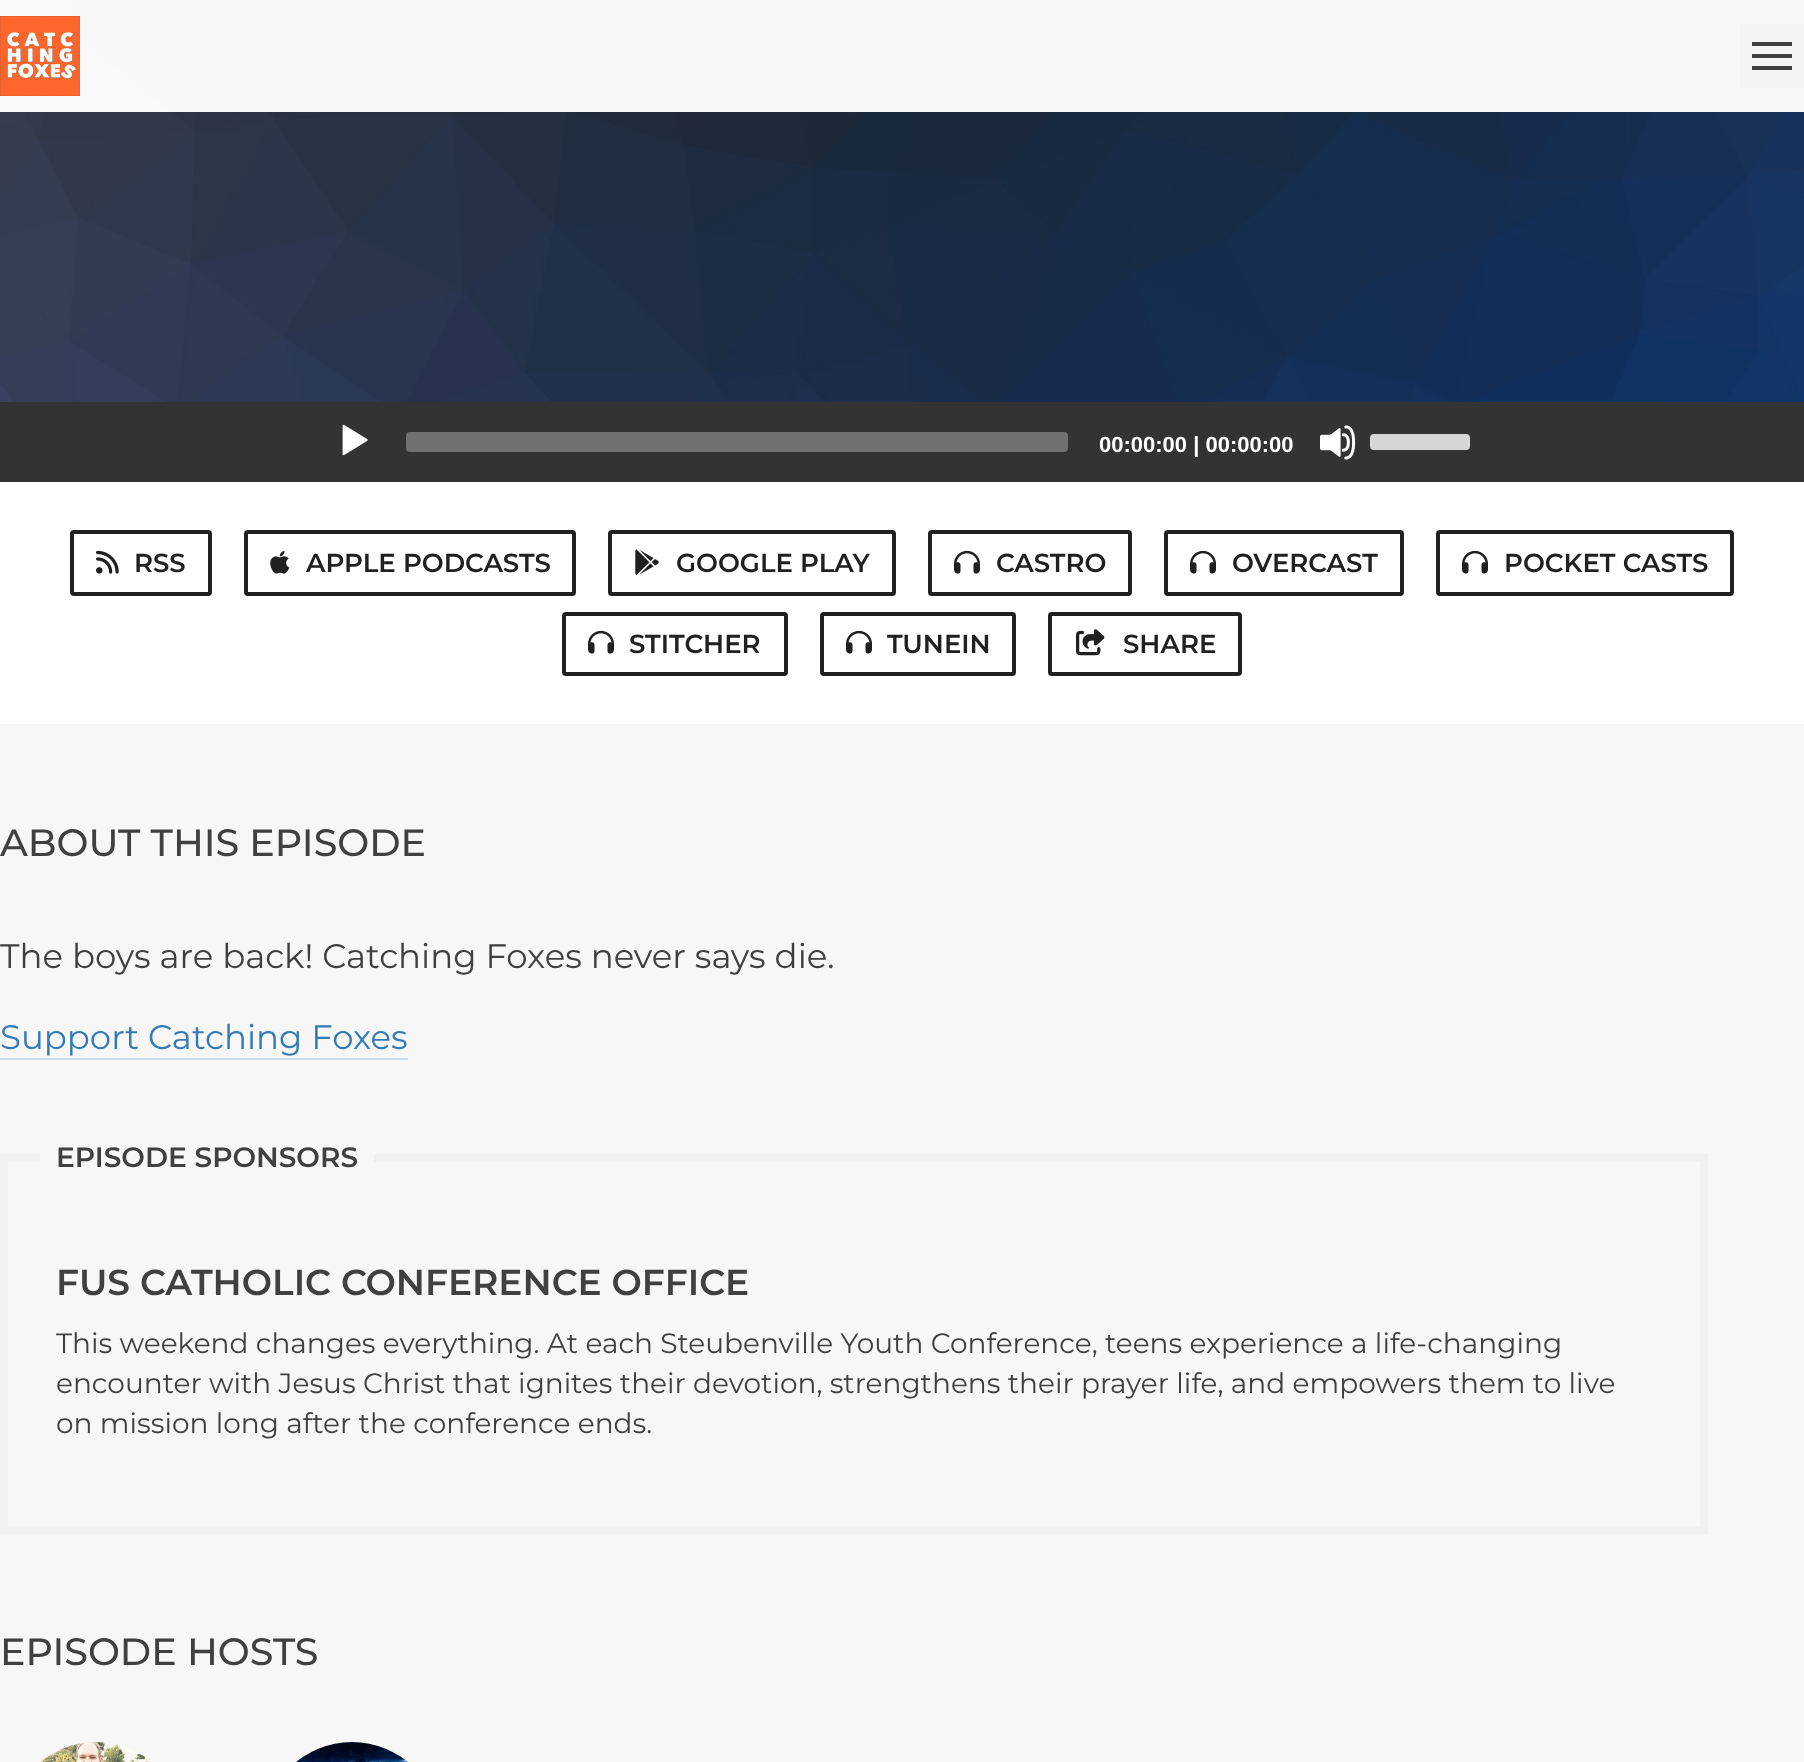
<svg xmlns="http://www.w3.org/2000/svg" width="1804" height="1762">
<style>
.a{font:bold 22px Liberation Sans;fill:#fff}
.b{font:600 26px Montserrat;fill:#202020}
.c{font:500 38px Montserrat;fill:#404040}
.d{font:34px Montserrat;fill:#404040}
.e{font:34px Montserrat;fill:#337ab7}
.f{font:600 28px Montserrat;fill:#404040}
.g{font:600 36px Montserrat;fill:#404040}
.h{font:28px Montserrat;fill:#404040}
</style>
<rect width="100%" height="100%" fill="#f7f7f7"/>
<image href="2.png" x="0" y="0" width="1804" height="402"/>
<path fill="#fffffff7" d="M0 0h1804v112H0z"/>
<image href="1.png" x="0" y="16" width="80" height="80"/>
<path fill="#f3f4f5" d="M1740 24h64v64H1740z"/>
<path fill="#404040" d="M1752 42h40v4H1752z"/>
<path fill="#404040" d="M1752 54h40v4H1752z"/>
<path fill="#404040" d="M1752 66h40v4H1752z"/>
<path fill="#333" d="M0 402h1804v80H0z"/>
<image href="3.png" x="342" y="424" width="26" height="32"/>
<rect fill="#707070" x="406" y="432" width="662" height="20" rx="4"/>
<image href="4.png" x="1320" y="425" width="36" height="35"/>
<rect fill="#d6d6d6" x="1370" y="434" width="100" height="16" rx="4"/>
<path fill="#fff" d="M0 482h1804v242H0z"/>
<rect fill="none" stroke="#202020" stroke-width="4" x="72" y="532" width="138" height="62" rx="2"/>
<image href="5.png" x="96" y="550" width="23" height="24"/>
<rect fill="none" stroke="#202020" stroke-width="4" x="246" y="532" width="328" height="62" rx="2"/>
<image href="6.png" x="270" y="550" width="20" height="24"/>
<rect fill="none" stroke="#202020" stroke-width="4" x="610" y="532" width="284" height="62" rx="2"/>
<image href="7.png" x="635" y="549" width="24" height="27"/>
<rect fill="none" stroke="#202020" stroke-width="4" x="930" y="532" width="200" height="62" rx="2"/>
<image href="8.png" x="954" y="550" width="26" height="24"/>
<rect fill="none" stroke="#202020" stroke-width="4" x="1166" y="532" width="236" height="62" rx="2"/>
<image href="8.png" x="1190" y="550" width="26" height="24"/>
<rect fill="none" stroke="#202020" stroke-width="4" x="1438" y="532" width="294" height="62" rx="2"/>
<image href="8.png" x="1462" y="550" width="26" height="24"/>
<rect fill="none" stroke="#202020" stroke-width="4" x="564" y="614" width="222" height="60" rx="2"/>
<image href="8.png" x="588" y="630" width="26" height="24"/>
<rect fill="none" stroke="#202020" stroke-width="4" x="822" y="614" width="192" height="60" rx="2"/>
<image href="8.png" x="846" y="630" width="26" height="24"/>
<rect fill="none" stroke="#202020" stroke-width="4" x="1050" y="614" width="190" height="60" rx="2"/>
<image href="9.png" x="1076" y="629" width="29" height="27"/>
<path fill="#d0deea" d="M0 1058h408v2H0z"/>
<path fill="none" stroke="#f0f0f0" stroke-width="8" d="M4 1158h1700v372H4z"/>
<path fill="#f7f7f7" d="M40 1154h334v8H40z"/>
<image href="10.png" x="40" y="1742" width="110" height="20"/>
<image href="11.png" x="296" y="1742" width="112" height="20"/>
<text class="a" x="1099" y="452">00:00:00 | 00:00:00</text>
<text class="b" x="134" y="572">RSS</text>
<text class="b" x="306" y="572">APPLE PODCASTS</text>
<text class="b" x="676" y="572">GOOGLE PLAY</text>
<text class="b" x="996" y="572">CASTRO</text>
<text class="b" x="1232" y="572">OVERCAST</text>
<text class="b" x="1504" y="572">POCKET CASTS</text>
<text class="b" x="629" y="653">STITCHER</text>
<text class="b" x="887" y="653">TUNEIN</text>
<text class="b" x="1123" y="653">SHARE</text>
<text class="c" x="0" y="856">ABOUT THIS EPISODE</text>
<text class="d" x="0" y="968">The boys are back! Catching Foxes never says die.</text>
<text class="e" x="0" y="1049">Support Catching Foxes</text>
<text class="f" x="56" y="1167">EPISODE SPONSORS</text>
<text class="g" x="56" y="1295">FUS CATHOLIC CONFERENCE OFFICE</text>
<text class="h" x="56" y="1353">This weekend changes everything. At each Steubenville Youth Conference, teens experience a life-changing</text>
<text class="h" x="56" y="1393">encounter with Jesus Christ that ignites their devotion, strengthens their prayer life, and empowers them to live</text>
<text class="h" x="56" y="1433">on mission long after the conference ends.</text>
<text class="c" x="0" y="1665">EPISODE HOSTS</text>
</svg>
